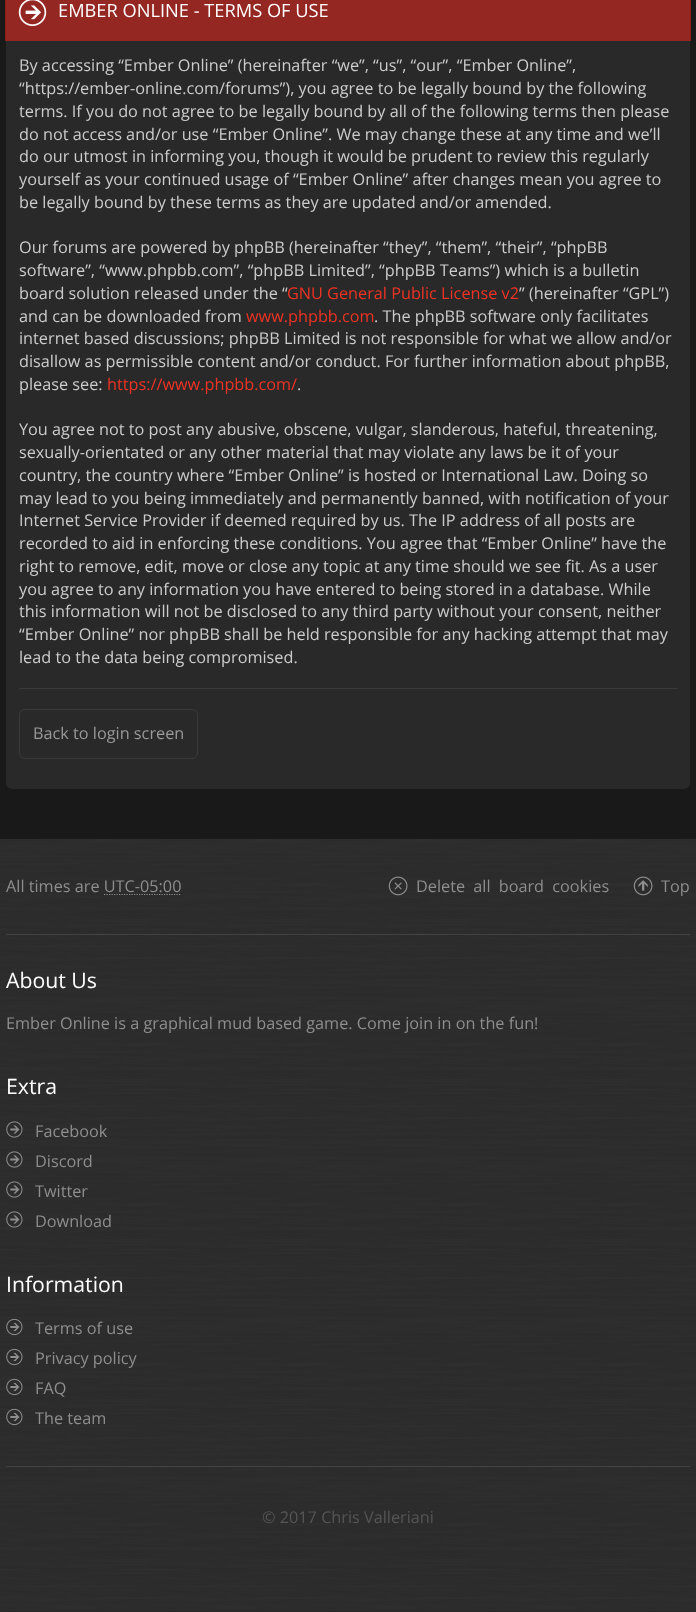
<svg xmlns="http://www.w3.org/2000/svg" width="696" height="1612">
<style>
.a{font:18.25px Open Sans;fill:#fff}
.b{font:16.25px Open Sans;fill:#ccc}
.c{font:16.25px Open Sans;fill:#ed3324}
.d{font:16.25px Open Sans;fill:#999}
.e{font:16.25px Open Sans;fill:#8e8e8e}
.f{font:21.25px Open Sans;fill:#fff}
.g{font:16.25px Open Sans;fill:#555}
</style>
<rect width="100%" height="100%" fill="#191919"/>
<path fill="#8c1f1a" d="M5 0h686v41H5z"/>
<rect fill="#292929" x="6" y="-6" width="684" height="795" rx="6"/>
<path fill="#942722" d="M6 0h684v41H6z"/>
<image href="1.png" x="18" y="0" width="29" height="27"/>
<path fill="#3a3a3a" d="M19 688h659v1H19z"/>
<rect fill="none" stroke="#3a3a3a" x="19.5" y="709.5" width="178" height="49" rx="5.5"/>
<path fill="#2a2a2a" d="M0 1610h696v2H0z"/>
<image href="2.png" x="0" y="839" width="696" height="771"/>
<path fill="#424242" d="M6 934h684v1H6z"/>
<path fill="none" stroke="#8e8e8e" stroke-width="1.2" stroke-dasharray="1.25 1.25" d="M104 894.5h77.5"/>
<image href="3.png" x="388" y="876" width="20" height="20"/>
<image href="4.png" x="633" y="876" width="20" height="20"/>
<path fill="#424242" d="M6 1466h684v1H6z"/>
<image href="5.png" x="6" y="1121" width="17" height="17"/>
<image href="6.png" x="6" y="1151" width="17" height="17"/>
<image href="7.png" x="6" y="1181" width="17" height="17"/>
<image href="8.png" x="6" y="1211" width="17" height="17"/>
<image href="9.png" x="6" y="1318" width="17" height="18"/>
<image href="10.png" x="6" y="1348" width="17" height="18"/>
<image href="11.png" x="6" y="1378" width="17" height="18"/>
<image href="12.png" x="6" y="1408" width="17" height="18"/>
<text class="a" x="58" y="17">EMBER ONLINE - TERMS OF USE</text>
<text class="b" x="19" y="71">By accessing “Ember Online” (hereinafter “we”, “us”, “our”, “Ember Online”,</text>
<text class="b" x="19" y="94">“https://ember-online.com/forums”), you agree to be legally bound by the following</text>
<text class="b" x="19" y="117">terms. If you do not agree to be legally bound by all of the following terms then please</text>
<text class="b" x="19" y="140">do not access and/or use “Ember Online”. We may change these at any time and we’ll</text>
<text class="b" x="19" y="162">do our utmost in informing you, though it would be prudent to review this regularly</text>
<text class="b" x="19" y="185">yourself as your continued usage of “Ember Online” after changes mean you agree to</text>
<text class="b" x="19" y="208">be legally bound by these terms as they are updated and/or amended.</text>
<text class="b" x="19" y="253">Our forums are powered by phpBB (hereinafter “they”, “them”, “their”, “phpBB</text>
<text class="b" x="19" y="276">software”, “www.phpbb.com”, “phpBB Limited”, “phpBB Teams”) which is a bulletin</text>
<text class="b" x="19" y="299">board solution released under the “</text>
<text class="c" x="287" y="299">GNU General Public License v2</text>
<text class="b" x="519" y="299">” (hereinafter “GPL”)</text>
<text class="b" x="19" y="322">and can be downloaded from</text>
<text class="c" x="246" y="322">www.phpbb.com</text>
<text class="b" x="374" y="322">. The phpBB software only facilitates</text>
<text class="b" x="19" y="344">internet based discussions; phpBB Limited is not responsible for what we allow and/or</text>
<text class="b" x="19" y="367">disallow as permissible content and/or conduct. For further information about phpBB,</text>
<text class="b" x="19" y="390">please see:</text>
<text class="c" x="107" y="390">https://www.phpbb.com/</text>
<text class="b" x="297" y="390">.</text>
<text class="b" x="19" y="435">You agree not to post any abusive, obscene, vulgar, slanderous, hateful, threatening,</text>
<text class="b" x="19" y="458">sexually-orientated or any other material that may violate any laws be it of your</text>
<text class="b" x="19" y="481">country, the country where “Ember Online” is hosted or International Law. Doing so</text>
<text class="b" x="19" y="504">may lead to you being immediately and permanently banned, with notification of your</text>
<text class="b" x="19" y="526">Internet Service Provider if deemed required by us. The IP address of all posts are</text>
<text class="b" x="19" y="549">recorded to aid in enforcing these conditions. You agree that “Ember Online” have the</text>
<text class="b" x="19" y="572">right to remove, edit, move or close any topic at any time should we see fit. As a user</text>
<text class="b" x="19" y="595">you agree to any information you have entered to being stored in a database. While</text>
<text class="b" x="19" y="617">this information will not be disclosed to any third party without your consent, neither</text>
<text class="b" x="19" y="640">“Ember Online” nor phpBB shall be held responsible for any hacking attempt that may</text>
<text class="b" x="19" y="663">lead to the data being compromised.</text>
<text class="d" x="33" y="739">Back to login screen</text>
<text class="e" x="6" y="892">All times are UTC-05:00</text>
<text class="e" x="416" y="892" word-spacing="4">Delete all board cookies</text>
<text class="e" x="661" y="892">Top</text>
<text class="f" x="6" y="988">About Us</text>
<text class="e" x="6" y="1029">Ember Online is a graphical mud based game. Come join in on the fun!</text>
<text class="f" x="6" y="1094">Extra</text>
<text class="e" x="35" y="1137">Facebook</text>
<text class="e" x="35" y="1167">Discord</text>
<text class="e" x="35" y="1197">Twitter</text>
<text class="e" x="35" y="1227">Download</text>
<text class="f" x="6" y="1292">Information</text>
<text class="e" x="35" y="1334">Terms of use</text>
<text class="e" x="35" y="1364">Privacy policy</text>
<text class="e" x="35" y="1394">FAQ</text>
<text class="e" x="35" y="1424">The team</text>
<text class="g" x="262" y="1523">© 2017 Chris Valleriani</text>
</svg>
